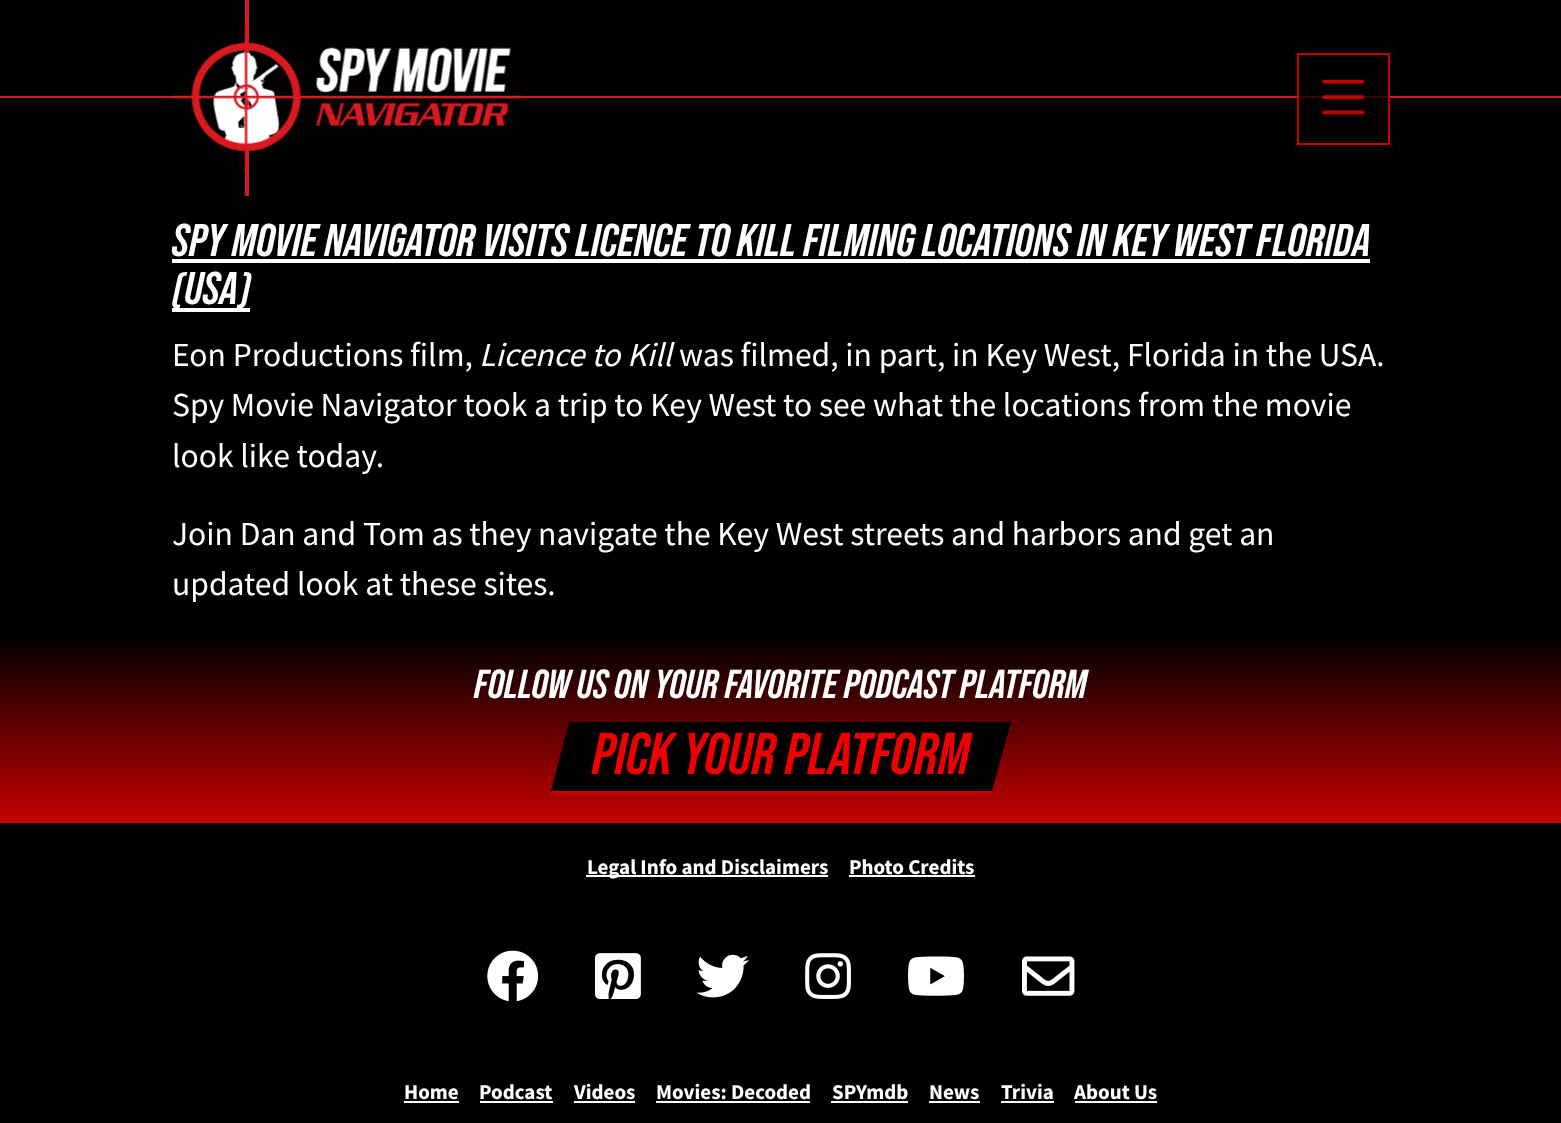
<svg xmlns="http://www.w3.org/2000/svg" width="1561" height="1123">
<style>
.a{font:italic bold 45.75px Bebas Neue;fill:#fff}
.b{font:33.6px Source Sans Pro;fill:#fff}
.c{font:italic 33.6px Source Sans Pro;fill:#fff}
.d{font:italic bold 40.4px Bebas Neue;fill:#fff}
.e{font:italic bold 58.75px Bebas Neue;fill:#ec0000}
.f{font:bold 21px Source Sans Pro;fill:#fff}
</style>
<defs>
<linearGradient id="g1" gradientUnits="userSpaceOnUse" x1="781" y1="637" x2="781" y2="823"><stop offset="0" stop-color="#000"/><stop offset="1" stop-color="#c40000"/></linearGradient>
</defs>
<rect width="100%" height="100%" fill="#000"/>
<path fill="#d71920" d="M0 96h1561v2H0z"/>
<path fill="#d71920" d="M245 0h4v196H245z"/>
<image href="1.png" x="171" y="22" width="351" height="150"/>
<path fill="#000000c4" d="M1299 96h89v2H1299z"/>
<path fill="none" stroke="#c40000" stroke-width="2" d="M1298 54h91v90H1298z"/>
<image href="2.png" x="1322" y="79" width="43" height="36"/>
<path fill="#fff" d="M172 259h1198v4H172z"/>
<path fill="#fff" d="M172 308h78v4H172z"/>
<path fill="url(#g1)" d="M0 639h1561v184H0z"/>
<path fill="#000" d="M569 722h442l-19 69h-441z"/>
<path fill="#c40000" d="M550 793l1-2h441l-2 4h-440z"/>
<path fill="#fff" d="M586 875h242v2H586z"/>
<path fill="#fff" d="M849 875h126v2H849z"/>
<image href="3.png" x="487" y="950" width="52" height="52"/>
<image href="4.png" x="595" y="953" width="46" height="46"/>
<image href="5.png" x="696" y="954" width="53" height="44"/>
<image href="6.png" x="805" y="953" width="46" height="46"/>
<image href="7.png" x="908" y="956" width="56" height="40"/>
<image href="8.png" x="1022" y="956" width="53" height="40"/>
<path fill="#fff" d="M404 1101h55v2H404z"/>
<path fill="#fff" d="M480 1101h73v2H480z"/>
<path fill="#fff" d="M574 1101h61v2H574z"/>
<path fill="#fff" d="M656 1101h154v2H656z"/>
<path fill="#fff" d="M831 1101h77v2H831z"/>
<path fill="#fff" d="M929 1101h51v2H929z"/>
<path fill="#fff" d="M1001 1101h53v2H1001z"/>
<path fill="#fff" d="M1075 1101h82v2H1075z"/>
<text class="a" x="172" y="256">SPY MOVIE NAVIGATOR VISITS LICENCE TO KILL FILMING LOCATIONS IN KEY WEST FLORIDA</text>
<text class="a" x="172" y="304">(USA)</text>
<text class="b" x="172" y="366">Eon Productions film,</text>
<text class="c" x="479" y="366">Licence to Kill</text>
<text class="b" x="679" y="366">was filmed, in part, in Key West, Florida in the USA.</text>
<text class="b" x="172" y="416">Spy Movie Navigator took a trip to Key West to see what the locations from the movie</text>
<text class="b" x="172" y="467">look like today.</text>
<text class="b" x="172" y="545">Join Dan and Tom as they navigate the Key West streets and harbors and get an</text>
<text class="b" x="172" y="595">updated look at these sites.</text>
<text class="d" x="474" y="698">FOLLOW US ON YOUR FAVORITE PODCAST PLATFORM</text>
<text class="e" x="592" y="774">PICK YOUR PLATFORM</text>
<text class="f" x="587" y="874">Legal Info and Disclaimers</text>
<text class="f" x="849" y="874">Photo Credits</text>
<text class="f" x="404" y="1099">Home</text>
<text class="f" x="479" y="1099">Podcast</text>
<text class="f" x="574" y="1099">Videos</text>
<text class="f" x="656" y="1099">Movies: Decoded</text>
<text class="f" x="832" y="1099">SPYmdb</text>
<text class="f" x="929" y="1099">News</text>
<text class="f" x="1001" y="1099">Trivia</text>
<text class="f" x="1074" y="1099">About Us</text>
</svg>
